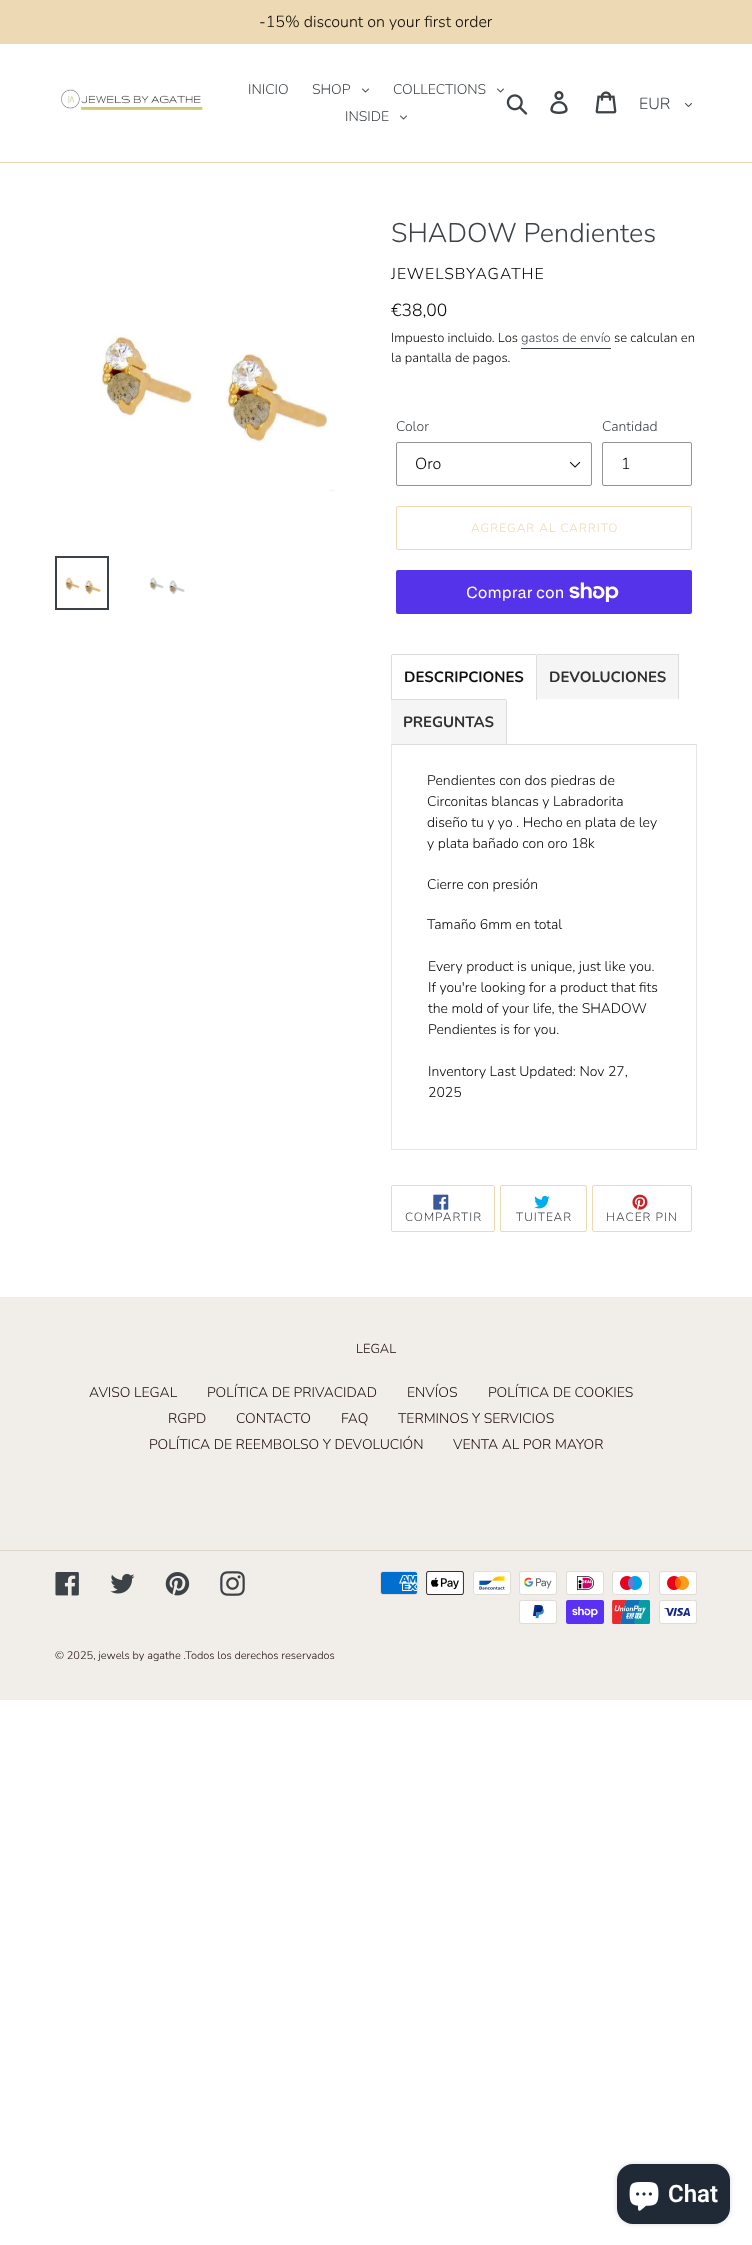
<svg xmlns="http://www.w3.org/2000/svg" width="752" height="2245">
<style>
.a{font:300 16px Nunito;fill:#0a0600}
.b{font:300 14px Nunito;fill:#3d4246}
.c{font:300 16px Nunito;fill:#3d4246}
.d{font:300 27px Nunito;fill:#3d4246}
.e{font:300 15.75px Nunito;letter-spacing:1px;fill:#000}
.f{font:300 17.5px Nunito;fill:#000}
.g{font:300 13px Nunito;fill:#000}
.h{font:300 13px Nunito;fill:#3d4246}
.i{font:300 16px Nunito;fill:#000}
.j{font:300 12px Nunito;letter-spacing:1px;fill:#edd9b3}
.k{font:16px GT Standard;fill:#fff}
.l{font:bold 15px Nunito;fill:#111}
.m{font:bold 15px Nunito;fill:#303030}
.n{font:300 14px Nunito;fill:#000}
.o{font:300 12px Nunito;letter-spacing:1px;fill:#3d4246}
.p{font:300 13px Nunito;fill:#160606}
.q{font:300 14px Nunito;fill:#160606}
.r{font:300 11px Nunito;fill:#160606}
.s{font:600 24px Roboto;fill:#fff}
</style>
<rect width="100%" height="100%" fill="#fff"/>
<path fill="#edd9b3" d="M0 0h752v44H0z"/>
<path fill="#edd9b3" d="M0 162h752v1H0z"/>
<image href="1.png" x="59" y="89" width="145" height="22"/>
<image href="2.png" x="362" y="88" width="7" height="5"/>
<image href="2.png" x="497" y="88" width="7" height="5"/>
<image href="2.png" x="400" y="115" width="7" height="5"/>
<image href="3.png" x="506" y="94" width="22" height="21"/>
<image href="4.png" x="550" y="91" width="18" height="23"/>
<image href="5.png" x="595" y="91" width="22" height="23"/>
<image href="6.png" x="685" y="103" width="7" height="4"/>
<image href="7.png" x="100" y="335" width="235" height="157"/>
<path fill="none" stroke="#3d4246" stroke-width="2" d="M56 557h52v52H56z"/>
<image href="8.png" x="65" y="577" width="36" height="18"/>
<image href="9.png" x="149" y="577" width="36" height="18"/>
<path fill="#3d4246" d="M521 348h90v1H521z"/>
<image href="10.png" x="569" y="461" width="12" height="7"/>
<rect fill="none" stroke="#949494" x="396.5" y="442.5" width="195" height="43" rx="1.5"/>
<rect fill="none" stroke="#949494" x="602.5" y="442.5" width="89" height="43" rx="1.5"/>
<rect fill="none" stroke="#edd9b3" x="396.5" y="506.5" width="295" height="43" rx="1.5"/>
<rect fill="#5433eb" x="396" y="570" width="296" height="44" rx="2"/>
<image href="11.png" x="569" y="582" width="50" height="20"/>
<path fill="#ddd" d="M391 744h306v1H391z"/>
<path fill="#ddd" d="M392 654h144v1H392z"/>
<path fill="#ddd" d="M536 655h1v45H536z"/>
<path fill="#ddd" d="M391 655h1v45H391z"/>
<path fill="#f5f5f5" d="M537 655h141v44H537z"/>
<path fill="#ddd" d="M537 654h142v1H537z"/>
<path fill="#ddd" d="M678 654h1v45H678z"/>
<path fill="#f5f5f5" d="M391 699h114c1 0 2 1 2 2v43h-116z"/>
<path fill="#ddd" d="M391 699h115v1H391z"/>
<path fill="#ddd" d="M506 700h1v44H506z"/>
<path fill="#e7e7e7" d="M696 745h1v405H696z"/>
<path fill="#e7e7e7" d="M391 1149h306v1H391z"/>
<path fill="#e7e7e7" d="M391 745h1v405H391z"/>
<rect fill="none" stroke="#edd9b3" x="391.5" y="1185.5" width="103" height="46" rx="1.5"/>
<image href="12.png" x="433" y="1194" width="16" height="16"/>
<rect fill="none" stroke="#edd9b3" x="500.5" y="1185.5" width="86" height="46" rx="1.5"/>
<image href="13.png" x="534" y="1195" width="16" height="14"/>
<rect fill="none" stroke="#edd9b3" x="592.5" y="1185.5" width="99" height="46" rx="1.5"/>
<image href="14.png" x="632" y="1194" width="16" height="16"/>
<path fill="#f1eeea" d="M0 1297h752v403H0z"/>
<path fill="#ddd5cb" d="M0 1550h752v1H0z"/>
<image href="15.png" x="55" y="1572" width="24" height="24"/>
<image href="16.png" x="110" y="1574" width="25" height="20"/>
<image href="17.png" x="165" y="1572" width="25" height="24"/>
<image href="18.png" x="220" y="1571" width="25" height="25"/>
<image href="19.png" x="380" y="1571" width="38" height="24"/>
<image href="20.png" x="426" y="1571" width="38" height="24"/>
<image href="21.png" x="473" y="1571" width="38" height="24"/>
<image href="22.png" x="519" y="1571" width="38" height="24"/>
<image href="23.png" x="566" y="1571" width="38" height="24"/>
<image href="24.png" x="612" y="1571" width="38" height="24"/>
<image href="25.png" x="659" y="1571" width="38" height="24"/>
<image href="26.png" x="519" y="1600" width="38" height="24"/>
<image href="27.png" x="566" y="1600" width="38" height="24"/>
<image href="28.png" x="612" y="1600" width="38" height="24"/>
<image href="29.png" x="659" y="1600" width="38" height="24"/>
<rect fill="#00000026" filter="blur(2.5px)" x="617" y="2164" width="113" height="60" rx="16"/>
<rect fill="#202a36" x="617" y="2164" width="113" height="60" rx="16"/>
<image href="30.png" x="629" y="2182" width="30" height="29"/>
<text class="a" x="259" y="27">-15% discount on your first order</text>
<text class="b" x="248" y="94">INICIO</text>
<text class="b" x="312" y="94">SHOP</text>
<text class="b" x="393" y="94">COLLECTIONS</text>
<text class="b" x="345" y="121">INSIDE</text>
<text class="c" x="639" y="109">EUR</text>
<text class="d" x="391" y="242">SHADOW Pendientes</text>
<text class="e" x="391" y="279">JEWELSBYAGATHE</text>
<text class="f" x="391" y="316">€38,00</text>
<text class="g" x="391" y="342">Impuesto incluido. Los</text>
<text class="h" x="521" y="342">gastos de envío</text>
<text class="g" x="614" y="342">se calculan en</text>
<text class="g" x="391" y="362">la pantalla de pagos.</text>
<text class="b" x="396" y="431">Color</text>
<text class="i" x="415" y="469">Oro</text>
<text class="b" x="602" y="431">Cantidad</text>
<text class="i" x="621" y="469">1</text>
<text class="j" x="471" y="532">AGREGAR AL CARRITO</text>
<text class="k" x="466" y="598">Comprar con</text>
<text class="l" x="404" y="682">DESCRIPCIONES</text>
<text class="m" x="549" y="682">DEVOLUCIONES</text>
<text class="m" x="403" y="727">PREGUNTAS</text>
<text class="n" x="427" y="785">Pendientes con dos piedras de</text>
<text class="n" x="427" y="806">Circonitas blancas y Labradorita</text>
<text class="n" x="427" y="827">diseño tu y yo . Hecho en plata de ley</text>
<text class="n" x="427" y="848">y plata bañado con oro 18k</text>
<text class="n" x="427" y="889">Cierre con presión</text>
<text class="n" x="427" y="929">Tamaño 6mm en total</text>
<text class="n" x="428" y="971">Every product is unique, just like you.</text>
<text class="n" x="428" y="992">If you're looking for a product that fits</text>
<text class="n" x="428" y="1013">the mold of your life, the SHADOW</text>
<text class="n" x="428" y="1034">Pendientes is for you.</text>
<text class="n" x="428" y="1076">Inventory Last Updated: Nov 27,</text>
<text class="n" x="428" y="1097">2025</text>
<text class="o" x="405" y="1221">COMPARTIR</text>
<text class="o" x="516" y="1221">TUITEAR</text>
<text class="o" x="606" y="1221">HACER PIN</text>
<text class="p" x="356" y="1353">LEGAL</text>
<text class="q" x="89" y="1397">AVISO LEGAL</text>
<text class="q" x="207" y="1397">POLÍTICA DE PRIVACIDAD</text>
<text class="q" x="407" y="1397">ENVÍOS</text>
<text class="q" x="488" y="1397">POLÍTICA DE COOKIES</text>
<text class="q" x="168" y="1423">RGPD</text>
<text class="q" x="236" y="1423">CONTACTO</text>
<text class="q" x="341" y="1423">FAQ</text>
<text class="q" x="398" y="1423">TERMINOS Y SERVICIOS</text>
<text class="q" x="149" y="1449">POLÍTICA DE REEMBOLSO Y DEVOLUCIÓN</text>
<text class="q" x="453" y="1449">VENTA AL POR MAYOR</text>
<text class="r" x="55" y="1659">© 2025, jewels by agathe .Todos los derechos reservados</text>
<text class="s" x="668" y="2202">Chat</text>
</svg>
